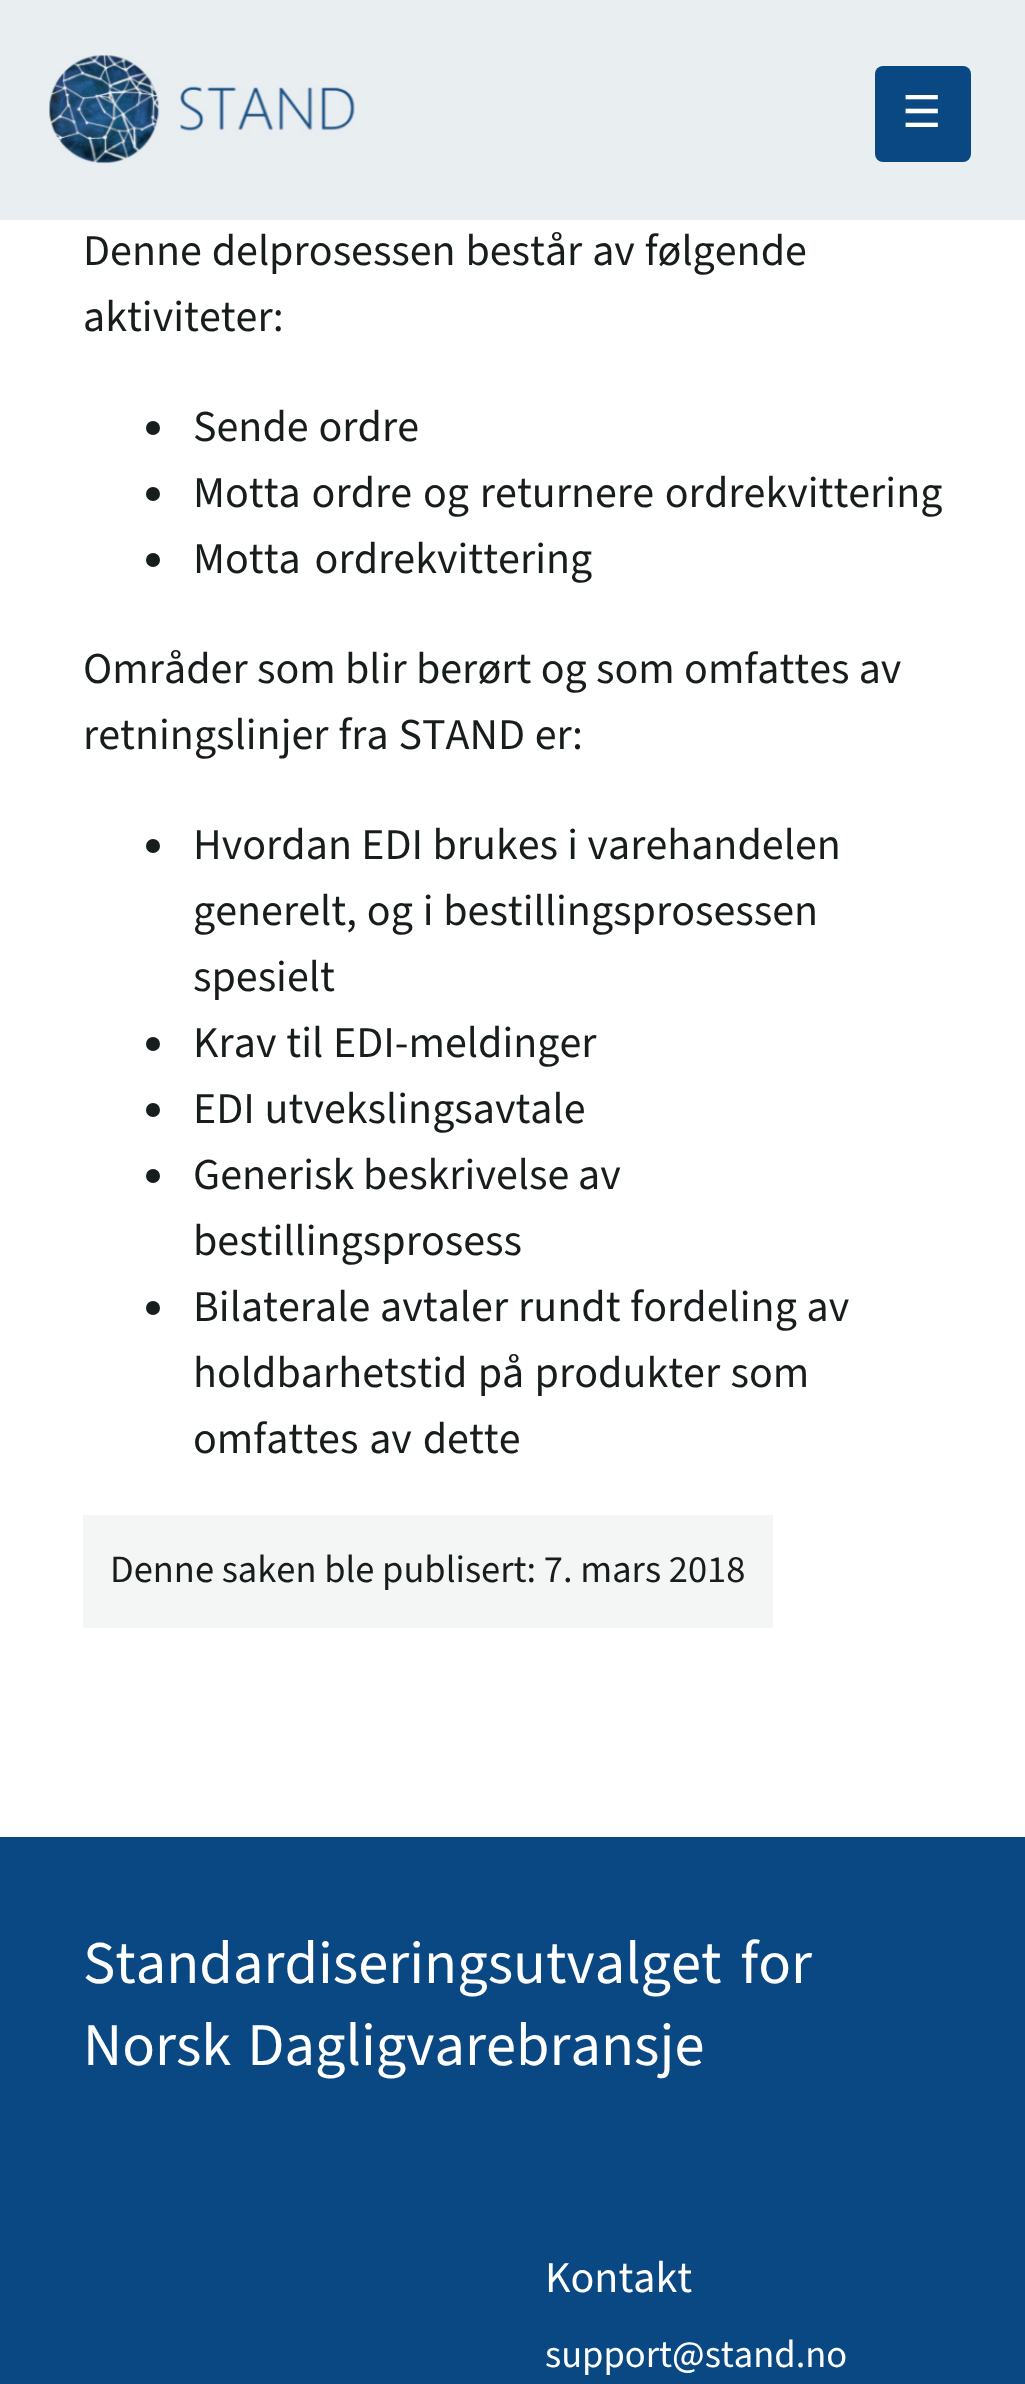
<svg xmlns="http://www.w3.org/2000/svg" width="1025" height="2384">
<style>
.a{font:44px DejaVu Sans;fill:#fff}
.b{font:44px 'Source Sans 3';fill:#171c1c}
.c{font:38.5px 'Source Sans 3';fill:#171c1c}
.d{font:60.5px 'Source Sans 3';fill:#fff}
.e{font:44px 'Source Sans 3';fill:#fff}
.f{font:38.5px 'Source Sans 3';fill:#fff}
</style>
<rect width="100%" height="100%" fill="#fff"/>
<path fill="#e9eef1" d="M0 0h1025v220H0z"/>
<image href="1.png" x="49" y="55" width="306" height="109"/>
<rect fill="#094882" x="875" y="66" width="96" height="96" rx="8"/>
<circle fill="#171c1c" cx="153" cy="428" r="7"/>
<circle fill="#171c1c" cx="153" cy="494" r="7"/>
<circle fill="#171c1c" cx="153" cy="560" r="7"/>
<circle fill="#171c1c" cx="153" cy="846" r="7"/>
<circle fill="#171c1c" cx="153" cy="1044" r="7"/>
<circle fill="#171c1c" cx="153" cy="1110" r="7"/>
<circle fill="#171c1c" cx="153" cy="1176" r="7"/>
<circle fill="#171c1c" cx="153" cy="1308" r="7"/>
<path fill="#f4f5f5" d="M83 1515h690v113H83z"/>
<path fill="#094882" d="M0 1837h1025v547H0z"/>
<text class="a" x="902" y="127">☰</text>
<text class="b" x="83" y="265" word-spacing="1">Denne delprosessen består av følgende</text>
<text class="b" x="83" y="331">aktiviteter:</text>
<text class="b" x="193" y="441" word-spacing="1">Sende ordre</text>
<text class="b" x="193" y="507" word-spacing="2">Motta ordre og returnere ordrekvittering</text>
<text class="b" x="193" y="573" word-spacing="5">Motta ordrekvittering</text>
<text class="b" x="83" y="683" word-spacing="0.5">Områder som blir berørt og som omfattes av</text>
<text class="b" x="83" y="749" word-spacing="1">retningslinjer fra STAND er:</text>
<text class="b" x="193" y="859" word-spacing="0.5">Hvordan EDI brukes i varehandelen</text>
<text class="b" x="193" y="925" word-spacing="1">generelt, og i bestillingsprosessen</text>
<text class="b" x="193" y="991">spesielt</text>
<text class="b" x="193" y="1057" word-spacing="1">Krav til EDI-meldinger</text>
<text class="b" x="193" y="1123" word-spacing="1">EDI utvekslingsavtale</text>
<text class="b" x="193" y="1189">Generisk beskrivelse av</text>
<text class="b" x="193" y="1255">bestillingsprosess</text>
<text class="b" x="193" y="1321" word-spacing="1">Bilaterale avtaler rundt fordeling av</text>
<text class="b" x="193" y="1387" word-spacing="1.5">holdbarhetstid på produkter som</text>
<text class="b" x="193" y="1453" word-spacing="2">omfattes av dette</text>
<text class="c" x="110" y="1582">Denne saken ble publisert: 7. mars 2018</text>
<text class="d" x="83" y="1983" word-spacing="7">Standardiseringsutvalget for</text>
<text class="d" x="83" y="2065" word-spacing="4">Norsk Dagligvarebransje</text>
<text class="e" x="545" y="2292">Kontakt</text>
<text class="f" x="545" y="2367">support@stand.no</text>
</svg>
